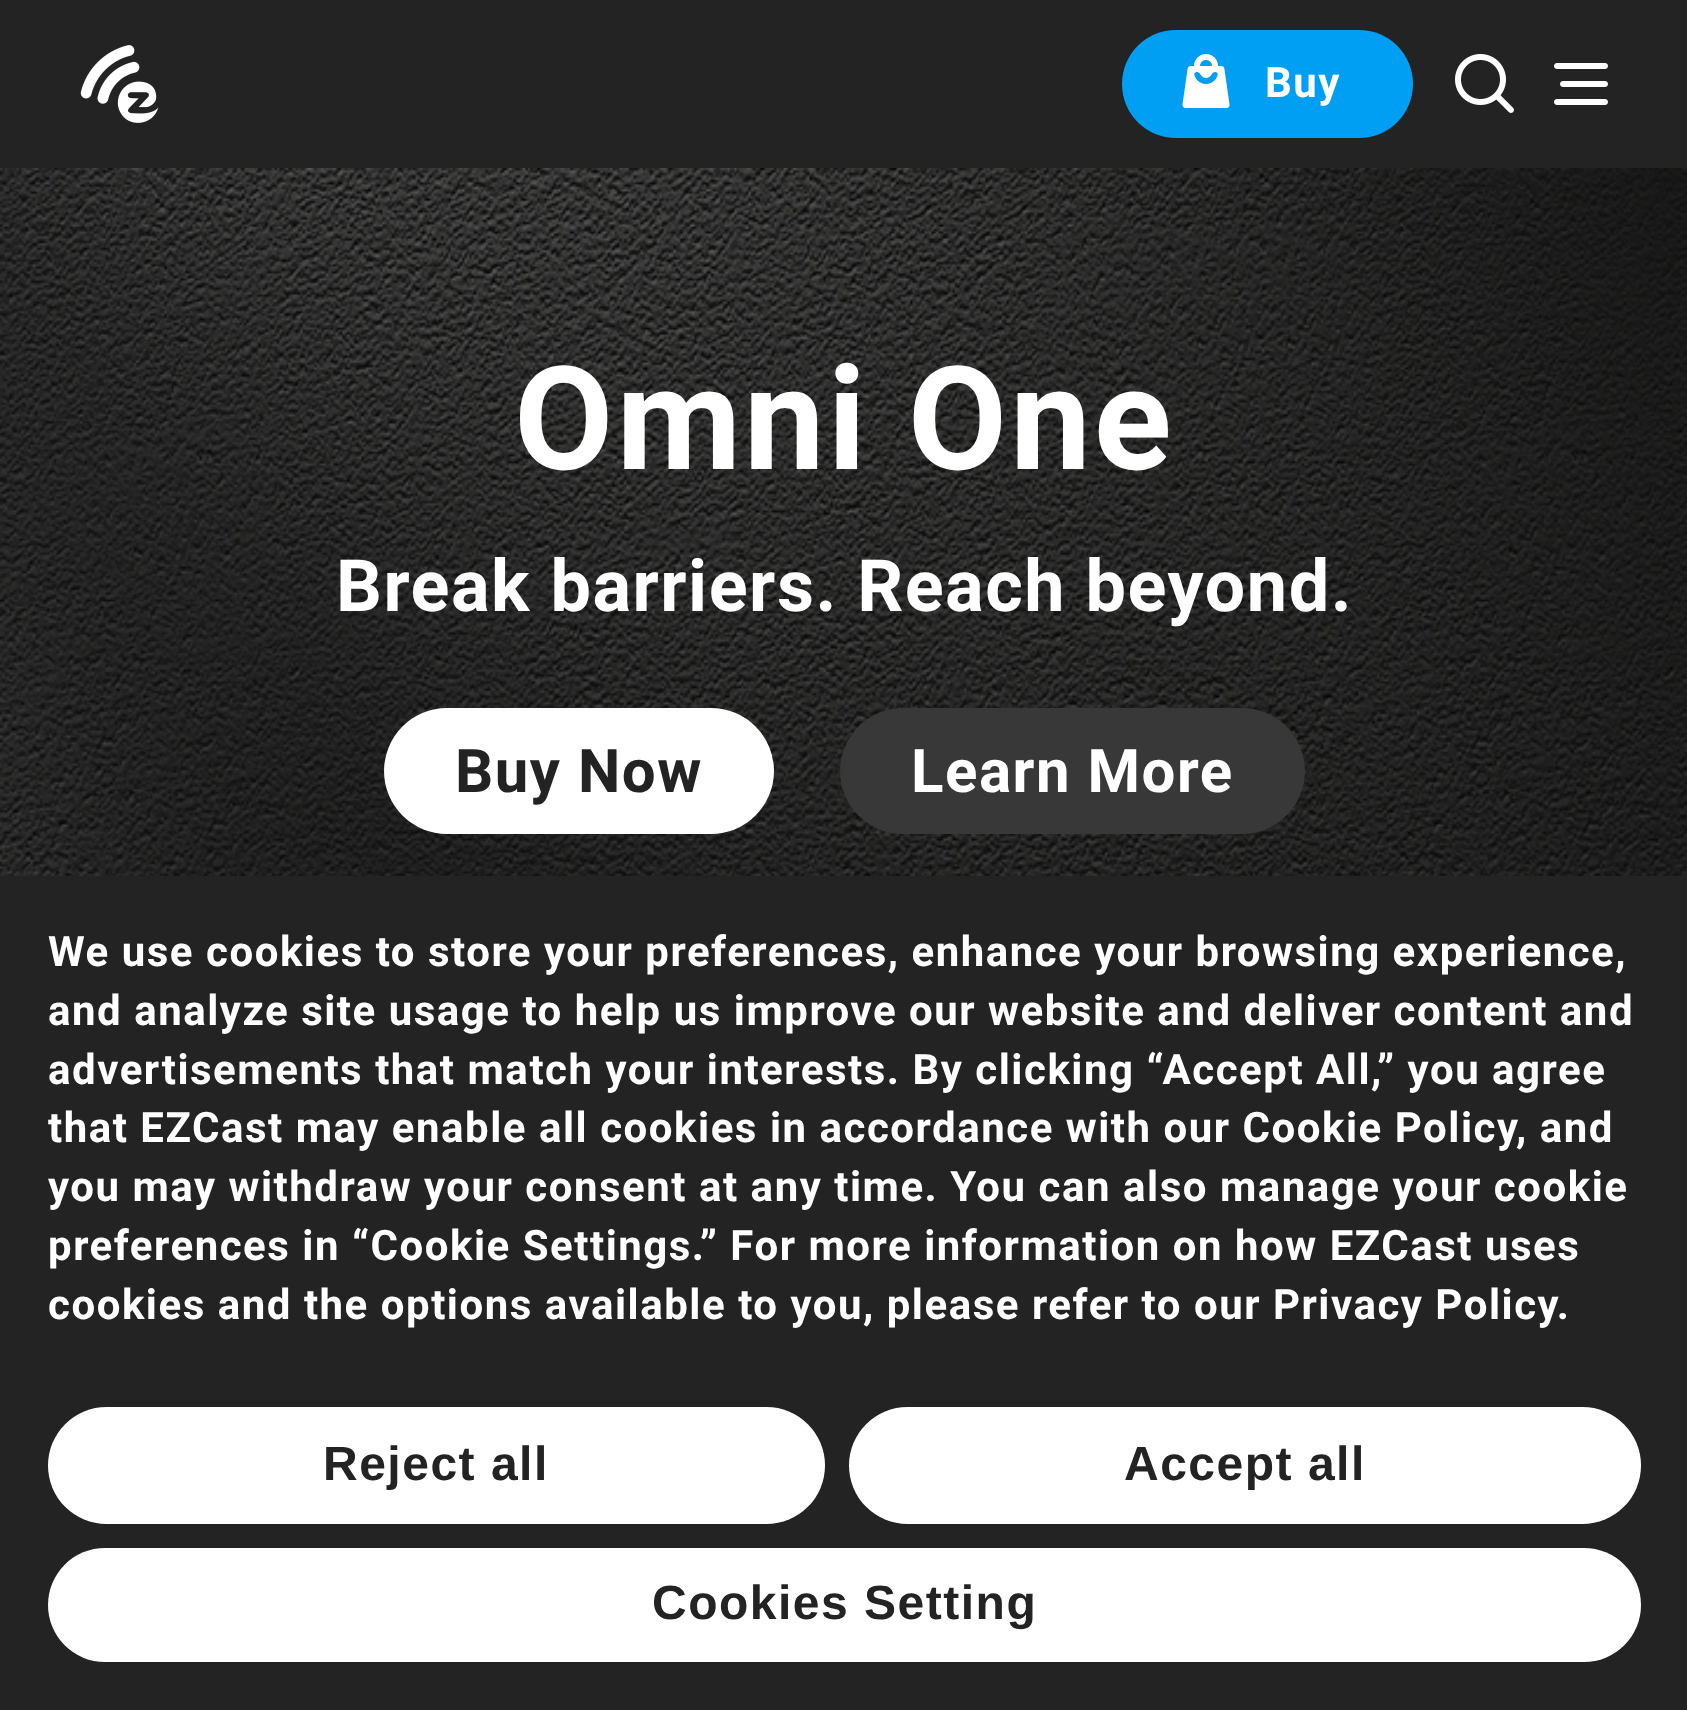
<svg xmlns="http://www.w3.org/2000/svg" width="1687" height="1710">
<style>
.a{font:bold 42px Roboto;letter-spacing:1.5px;fill:#fff}
.b{font:bold 144px Roboto;letter-spacing:3px;fill:#fff}
.c{font:bold 72px Roboto;letter-spacing:1.5px;fill:#fff}
.d{font:bold 60px Roboto;letter-spacing:1.5px;fill:#232323}
.e{font:bold 60px Roboto;letter-spacing:1.5px;fill:#fff}
.f{font:bold 48px Liberation Sans;letter-spacing:1.5px;fill:#232323}
</style>
<rect width="100%" height="100%" fill="#fff"/>
<path fill="#232323" d="M0 0h1687v168H0z"/>
<image href="1.png" x="80" y="45" width="79" height="78"/>
<rect fill="#009ff4" x="1122" y="30" width="291" height="108" rx="54"/>
<image href="2.png" x="1182" y="54" width="48" height="54"/>
<image href="3.png" x="1455" y="54" width="59" height="59"/>
<image href="4.png" x="1554" y="63" width="54" height="42"/>
<image href="5.png" x="0" y="168" width="1687" height="708"/>
<rect fill="#fff" x="384" y="708" width="390" height="126" rx="63"/>
<rect fill="#383838" x="840" y="708" width="465" height="126" rx="63"/>
<path fill="#232323" d="M0 876h1687v834H0z"/>
<rect fill="#fff" x="48" y="1407" width="777" height="117" rx="58.5"/>
<rect fill="#fff" x="849" y="1407" width="792" height="117" rx="58.5"/>
<rect fill="#fff" x="48" y="1548" width="1593" height="114" rx="57"/>
<text class="a" x="1265" y="97">Buy</text>
<text class="b" x="514" y="469">Omni One</text>
<text class="c" x="336" y="611">Break barriers. Reach beyond.</text>
<text class="d" x="455" y="792">Buy Now</text>
<text class="e" x="911" y="792">Learn More</text>
<text class="a" x="48" y="966">We use cookies to store your preferences, enhance your browsing experience,</text>
<text class="a" x="48" y="1025">and analyze site usage to help us improve our website and deliver content and</text>
<text class="a" x="48" y="1084">advertisements that match your interests. By clicking “Accept All,” you agree</text>
<text class="a" x="48" y="1142">that EZCast may enable all cookies in accordance with our Cookie Policy, and</text>
<text class="a" x="48" y="1201">you may withdraw your consent at any time. You can also manage your cookie</text>
<text class="a" x="48" y="1260">preferences in “Cookie Settings.” For more information on how EZCast uses</text>
<text class="a" x="48" y="1319">cookies and the options available to you, please refer to our Privacy Policy.</text>
<text class="f" x="323" y="1480">Reject all</text>
<text class="f" x="1124" y="1480">Accept all</text>
<text class="f" x="652" y="1619">Cookies Setting</text>
</svg>
